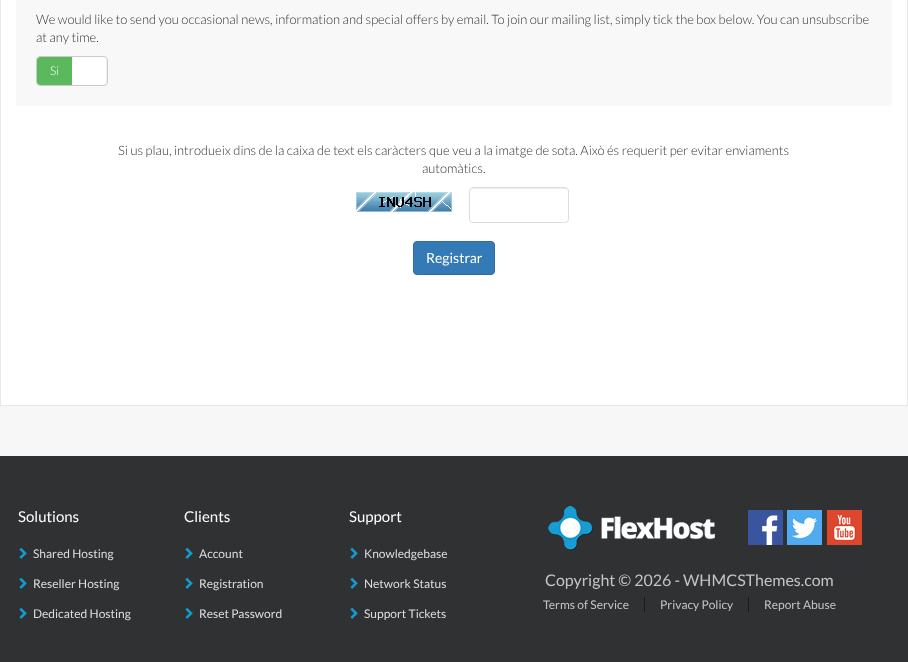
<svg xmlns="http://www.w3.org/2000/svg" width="908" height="662">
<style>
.a{font:300 13px Lato;fill:#333}
.b{font:300 12px Lato;fill:#fff}
.c{font:14px Lato;fill:#fff}
.d{font:15px Lato;fill:#fff}
.e{font:12px Lato;fill:#ddd}
.f{font:16px Lato;fill:#c4c4c4}
.g{font:12px Lato;fill:#c4c4c4}
</style>
<defs>
<clipPath id="clip1"><rect x="37" y="57" width="70" height="28" rx="3"/></clipPath>
</defs>
<rect width="100%" height="100%" fill="#f7f7f7"/>
<path fill="none" stroke="#e8e8e8" d="M0.5 -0.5h907v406H0.5z"/>
<path fill="#fff" d="M1 0h906v405H1z"/>
<rect fill="#f8f8f8" x="16" y="-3" width="876" height="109" rx="3"/>
<rect fill="none" stroke="#ccc" x="36.5" y="56.5" width="71" height="29" rx="3.5"/>
<path fill="#5cb85c" d="M40 57h32v28h-32c-1.5 0-3-1.5-3-3v-22c0-1.5 1.5-3 3-3z"/>
<path fill="#fff" d="M72 57h31c1.5 0 3 1.5 3 3v22c0 1.5-1.5 3-3 3h-31z"/>
<g clip-path="url(#clip1)">
<path fill="#eee" d="M106 57h1v28H106z"/>
</g>
<image href="1.png" x="356" y="191" width="96" height="21"/>
<path fill="#ececec" d="M473 189h92c2 0 3 1 3 3c0-8-15-4-18-4h-62c-3 0-18-4-18 4c0-2 1-3 3-3z"/>
<rect fill="none" stroke="#ddd" x="469.5" y="187.5" width="99" height="35" rx="3.5"/>
<rect fill="#337ab7" stroke="#2e6da4" x="413.5" y="241.5" width="81" height="33" rx="3.5"/>
<path fill="#2f3132" d="M0 456h908v206H0z"/>
<image href="2.png" x="19" y="547" width="8" height="12"/>
<image href="2.png" x="19" y="577" width="8" height="12"/>
<image href="2.png" x="19" y="607" width="8" height="12"/>
<image href="2.png" x="185" y="547" width="8" height="12"/>
<image href="2.png" x="185" y="577" width="8" height="12"/>
<image href="2.png" x="185" y="607" width="8" height="12"/>
<image href="2.png" x="350" y="547" width="8" height="12"/>
<image href="2.png" x="350" y="577" width="8" height="12"/>
<image href="2.png" x="350" y="607" width="8" height="12"/>
<image href="3.png" x="548" y="506" width="167" height="45"/>
<image href="4.png" x="748" y="510" width="35" height="35"/>
<image href="5.png" x="787" y="510" width="35" height="35"/>
<image href="6.png" x="827" y="510" width="35" height="35"/>
<path fill="#191a1b" d="M644 597h1v15H644z"/>
<path fill="#191a1b" d="M748 597h1v15H748z"/>
<text class="a" x="36" y="24">We would like to send you occasional news, information and special offers by email. To join our mailing list, simply tick the box below. You can unsubscribe</text>
<text class="a" x="36" y="42">at any time.</text>
<text class="b" x="50" y="75">Si</text>
<text class="a" x="118" y="155">Si us plau, introdueix dins de la caixa de text els caràcters que veu a la imatge de sota. Això és requerit per evitar enviaments</text>
<text class="a" x="422" y="173">automàtics.</text>
<text class="c" x="426" y="263">Registrar</text>
<text class="d" x="18" y="522">Solutions</text>
<text class="e" x="33" y="558">Shared Hosting</text>
<text class="e" x="33" y="588">Reseller Hosting</text>
<text class="e" x="33" y="618">Dedicated Hosting</text>
<text class="d" x="184" y="522">Clients</text>
<text class="e" x="199" y="558">Account</text>
<text class="e" x="199" y="588">Registration</text>
<text class="e" x="199" y="618">Reset Password</text>
<text class="d" x="349" y="522">Support</text>
<text class="e" x="364" y="558">Knowledgebase</text>
<text class="e" x="364" y="588">Network Status</text>
<text class="e" x="364" y="618">Support Tickets</text>
<text class="f" x="545" y="586">Copyright © 2026 - WHMCSThemes.com</text>
<text class="g" x="543" y="609">Terms of Service</text>
<text class="g" x="660" y="609">Privacy Policy</text>
<text class="g" x="764" y="609">Report Abuse</text>
</svg>
